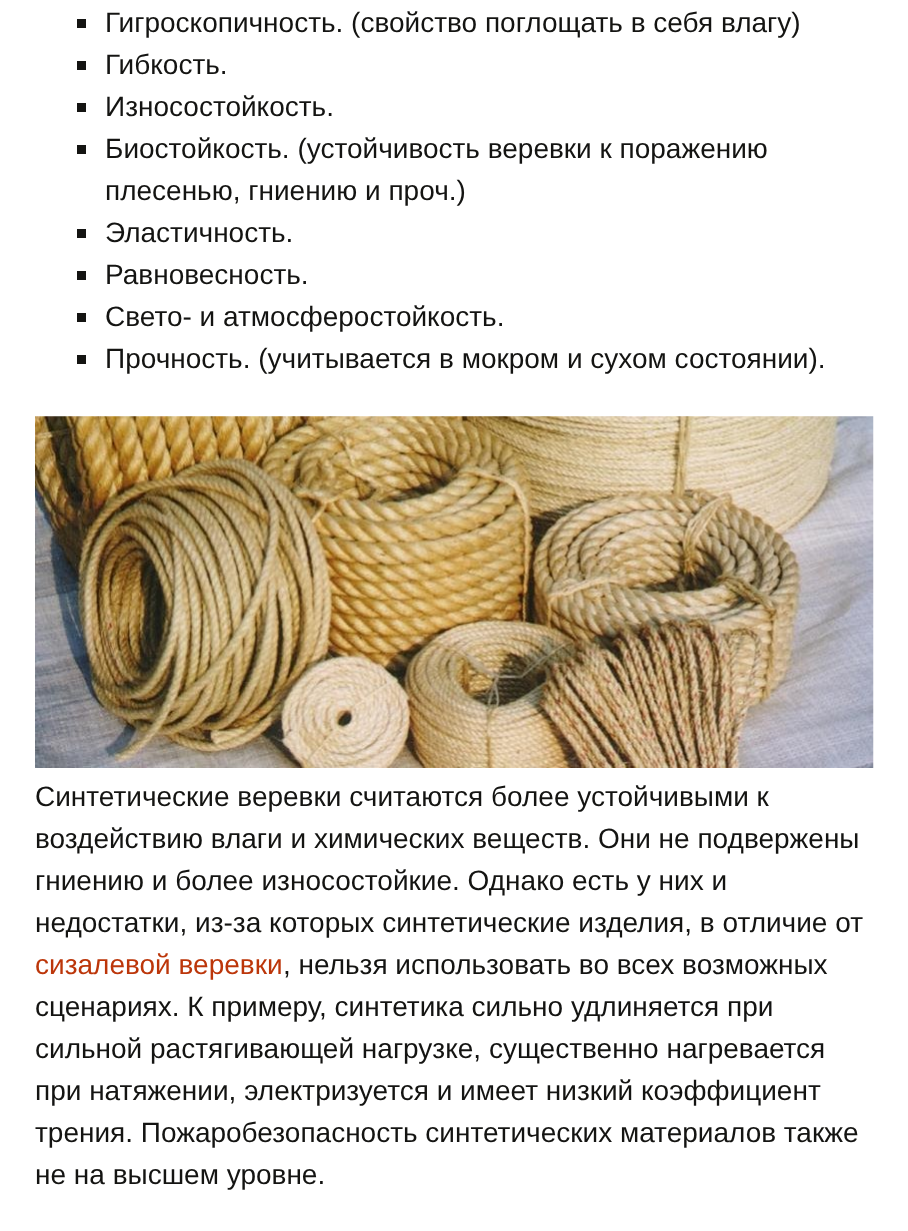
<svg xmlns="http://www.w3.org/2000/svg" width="908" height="1231">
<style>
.a{font:28px Liberation Sans;fill:#141412}
.b{font:28px Liberation Sans;fill:#bc360a}
</style>
<rect width="100%" height="100%" fill="#fff"/>
<path fill="#141412" d="M77 19h9v9H77z"/>
<path fill="#141412" d="M77 61h9v9H77z"/>
<path fill="#141412" d="M77 103h9v9H77z"/>
<path fill="#141412" d="M77 145h9v9H77z"/>
<path fill="#141412" d="M77 229h9v9H77z"/>
<path fill="#141412" d="M77 271h9v9H77z"/>
<path fill="#141412" d="M77 313h9v9H77z"/>
<path fill="#141412" d="M77 355h9v9H77z"/>
<image href="1.png" x="35" y="416" width="839" height="352"/>
<text class="a" x="105" y="32">Гигроскопичность. (свойство поглощать в себя влагу)</text>
<text class="a" x="105" y="74">Гибкость.</text>
<text class="a" x="105" y="116">Износостойкость.</text>
<text class="a" x="105" y="158">Биостойкость. (устойчивость веревки к поражению</text>
<text class="a" x="105" y="200">плесенью, гниению и проч.)</text>
<text class="a" x="105" y="242">Эластичность.</text>
<text class="a" x="105" y="284">Равновесность.</text>
<text class="a" x="105" y="326">Свето- и атмосферостойкость.</text>
<text class="a" x="105" y="368">Прочность. (учитывается в мокром и сухом состоянии).</text>
<text class="a" x="35" y="806">Синтетические веревки считаются более устойчивыми к</text>
<text class="a" x="35" y="848">воздействию влаги и химических веществ. Они не подвержены</text>
<text class="a" x="35" y="890">гниению и более износостойкие. Однако есть у них и</text>
<text class="a" x="35" y="932">недостатки, из-за которых синтетические изделия, в отличие от</text>
<text class="b" x="35" y="974">сизалевой веревки</text>
<text class="a" x="283" y="974">, нельзя использовать во всех возможных</text>
<text class="a" x="35" y="1016">сценариях. К примеру, синтетика сильно удлиняется при</text>
<text class="a" x="35" y="1058">сильной растягивающей нагрузке, существенно нагревается</text>
<text class="a" x="35" y="1100">при натяжении, электризуется и имеет низкий коэффициент</text>
<text class="a" x="35" y="1142">трения. Пожаробезопасность синтетических материалов также</text>
<text class="a" x="35" y="1184">не на высшем уровне.</text>
</svg>
